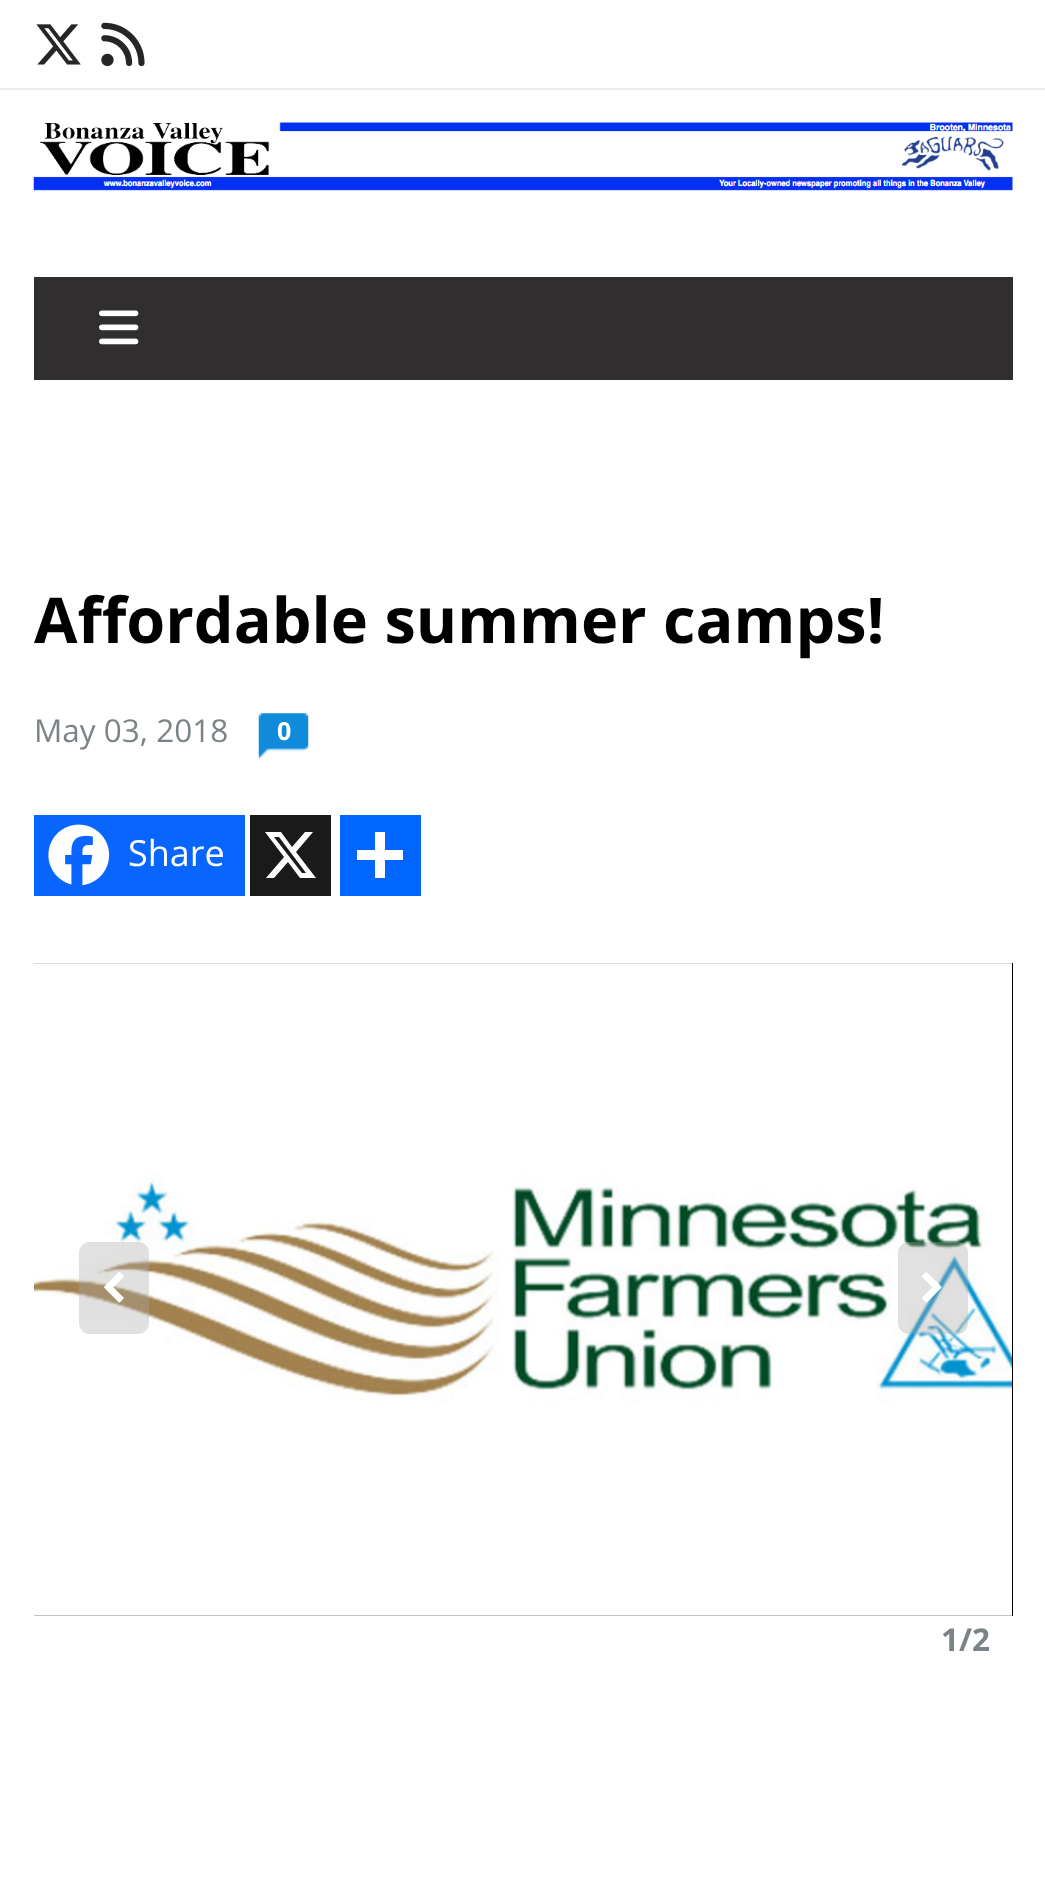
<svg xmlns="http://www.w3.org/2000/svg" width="1045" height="1904">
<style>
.a{font:bold 63px Open Sans;fill:#000}
.b{font:31.5px Open Sans;fill:#7c8387}
.c{font:bold 25px Open Sans;fill:#fff}
.d{font:36px Open Sans;fill:#fff}
.e{font:bold 31.5px Open Sans;fill:#7c8387}
</style>
<rect width="100%" height="100%" fill="#fff"/>
<path fill="#ededed" d="M0 88h1045v2H0z"/>
<image href="1.png" x="36" y="24" width="45" height="41"/>
<image href="2.png" x="101" y="22" width="44" height="45"/>
<image href="3.png" x="33" y="122" width="980" height="69"/>
<path fill="#312e2f" d="M34 277h979v103H34z"/>
<image href="4.png" x="99" y="310" width="40" height="35"/>
<image href="5.png" x="258" y="713" width="51" height="46"/>
<path fill="#0866ff" d="M34 815h211v81H34z"/>
<image href="6.png" x="48" y="824" width="62" height="62"/>
<path fill="#1a1a1a" d="M250 815h81v81H250z"/>
<path fill="#fff" d="M305 832h8l-17 20l20 26h-16l-12-16l-14 16h-8l18-21l-19-25h16l11 15zm-3 41h4l-27-36h-5z"/>
<path fill="#0166ff" d="M340 815h81v81H340z"/>
<path fill="#fff" d="M375 832h10v46H375z"/>
<path fill="#fff" d="M357 850h46v10H357z"/>
<path fill="#000" d="M34 963h979v653H34z"/>
<image href="9.png" x="34" y="963" width="978" height="653"/>
<rect fill="#aba9a959" x="79" y="1242" width="70" height="92" rx="11"/>
<image href="7.png" x="104" y="1272" width="20" height="31"/>
<rect fill="#aba9a959" x="898" y="1242" width="70" height="92" rx="11"/>
<image href="8.png" x="922" y="1272" width="20" height="31"/>
<text class="a" x="34" y="643">Affordable summer camps!</text>
<text class="b" x="34" y="742">May 03, 2018</text>
<text class="c" x="277" y="740">0</text>
<text class="d" x="128" y="866">Share</text>
<text class="e" x="941" y="1651">1/2</text>
</svg>
